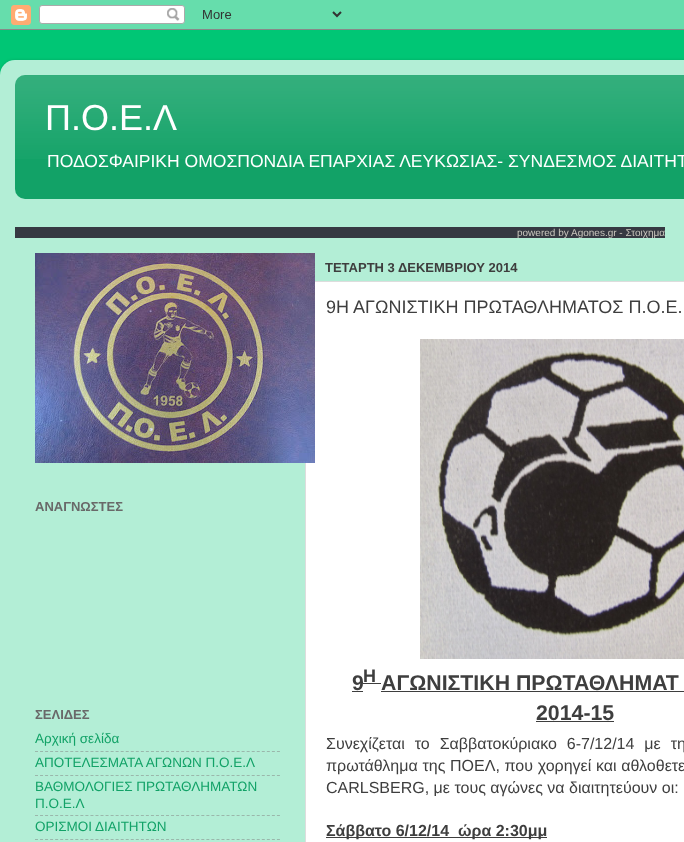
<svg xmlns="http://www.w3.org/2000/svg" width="684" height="842">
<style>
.a{font:36px Liberation Sans;fill:#fff}
.b{font:17.55px Liberation Sans;fill:#fff}
.c{font:10px Liberation Sans;fill:#c9c6bd}
.d{font:bold 13px Liberation Sans;fill:#696969}
.e{font:13.5px Liberation Sans;fill:#12a267}
.f{font:bold 13px Liberation Sans;fill:#3e3e3e}
.g{font:18px Liberation Sans;fill:#3e3e3e}
.h{font:bold 21.3px Liberation Sans;fill:#3e3e3e}
.i{font:bold 18px Liberation Sans;fill:#3e3e3e}
.j{font:16px Liberation Sans;fill:#3e3e3e}
.k{font:bold 16px Liberation Sans;fill:#3e3e3e}
</style>
<defs>
<clipPath id="clip1"><path d="M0 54h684v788h-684zm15 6h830c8.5 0 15 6.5 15 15v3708c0 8.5-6.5 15-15 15h-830c-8.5 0-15-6.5-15-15v-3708c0-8.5 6.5-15 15-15z" clip-rule="evenodd"/></clipPath>
</defs>
<rect width="100%" height="100%" fill="#00c675"/>
<image href="1.png" x="0" y="0" width="684" height="30"/>
<g clip-path="url(#clip1)">
<rect fill="#00000026" filter="blur(1.5px)" y="60" width="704" height="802" rx="15"/>
</g>
<image href="2.png" x="0" y="60" width="684" height="782"/>
<rect fill="#12a267" x="15" y="75" width="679" height="124" rx="10"/>
<image href="3.png" x="15" y="75" width="669" height="84"/>
<path fill="#363942" d="M15 227h650v11H15z"/>
<path fill="#fff" stroke="#ddd" d="M305.5 281.5h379v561H305.5z"/>
<image href="4.png" x="35" y="253" width="280" height="210"/>
<path fill="none" stroke="#9ab7ab" stroke-dasharray="3 2.04" d="M35 751.5h245"/>
<path fill="none" stroke="#9ab7ab" stroke-dasharray="3 2.04" d="M35 775.5h245"/>
<path fill="none" stroke="#9ab7ab" stroke-dasharray="3 2.04" d="M35 815.5h245"/>
<path fill="none" stroke="#9ab7ab" stroke-dasharray="3 2.04" d="M35 839.5h245"/>
<image href="5.png" x="420" y="339" width="264" height="320"/>
<path fill="#3e3e3e" d="M352 691h11v1H352z"/>
<path fill="#3e3e3e" d="M363 683h18v1H363z"/>
<path fill="#3e3e3e" d="M381 691h303v1H381z"/>
<path fill="#3e3e3e" d="M536 721h78v1H536z"/>
<path fill="#3e3e3e" d="M326 837h221v1H326z"/>
<text class="a" x="45" y="130">Π.Ο.Ε.Λ</text>
<text class="b" x="47" y="167">ΠΟΔΟΣΦΑΙΡΙΚΗ ΟΜΟΣΠΟΝΔΙΑ ΕΠΑΡΧΙΑΣ ΛΕΥΚΩΣΙΑΣ- ΣΥΝΔΕΣΜΟΣ ΔΙΑΙΤΗΤ</text>
<text class="c" x="517" y="236">powered by</text>
<text class="c" x="571" y="236">Agones.gr - Στοιχημα</text>
<text class="d" x="35" y="511">ΑΝΑΓΝΩΣΤΕΣ</text>
<text class="d" x="35" y="719">ΣΕΛΙΔΕΣ</text>
<text class="e" x="35" y="743">Αρχική σελίδα</text>
<text class="e" x="35" y="767">AΠΟΤΕΛΕΣΜΑΤΑ ΑΓΩΝΩΝ Π.Ο.Ε.Λ</text>
<text class="e" x="35" y="791">ΒΑΘΜΟΛΟΓΙΕΣ ΠΡΩΤΑΘΛΗΜΑΤΩΝ</text>
<text class="e" x="35" y="808">Π.Ο.Ε.Λ</text>
<text class="e" x="35" y="831">ΟΡΙΣΜΟΙ ΔΙΑΙΤΗΤΩΝ</text>
<text class="f" x="325" y="272">ΤΕΤΑΡΤΗ 3 ΔΕΚΕΜΒΡΙΟΥ 2014</text>
<text class="g" x="326" y="313">9Η ΑΓΩΝΙΣΤΙΚΗ ΠΡΩΤΑΘΛΗΜΑΤΟΣ Π.Ο.Ε.</text>
<text class="h" x="352" y="690">9</text>
<text class="i" x="363" y="682">Η</text>
<text class="h" x="381" y="690">ΑΓΩΝΙΣΤΙΚΗ ΠΡΩΤΑΘΛΗΜΑΤ</text>
<text class="h" x="536" y="720">2014-15</text>
<text class="j" x="326" y="749" word-spacing="5.5">Συνεχίζεται το Σαββατοκύριακο 6-7/12/14 με τη</text>
<text class="j" x="326" y="771" word-spacing="0.25">πρωτάθλημα της ΠΟΕΛ, που χορηγεί και αθλοθετε</text>
<text class="j" x="326" y="793">CARLSBERG, με τους αγώνες να διαιτητεύουν οι:</text>
<text class="k" xml:space="preserve" x="326" y="836">Σάββατο 6/12/14  ώρα 2:30μμ</text>
</svg>
